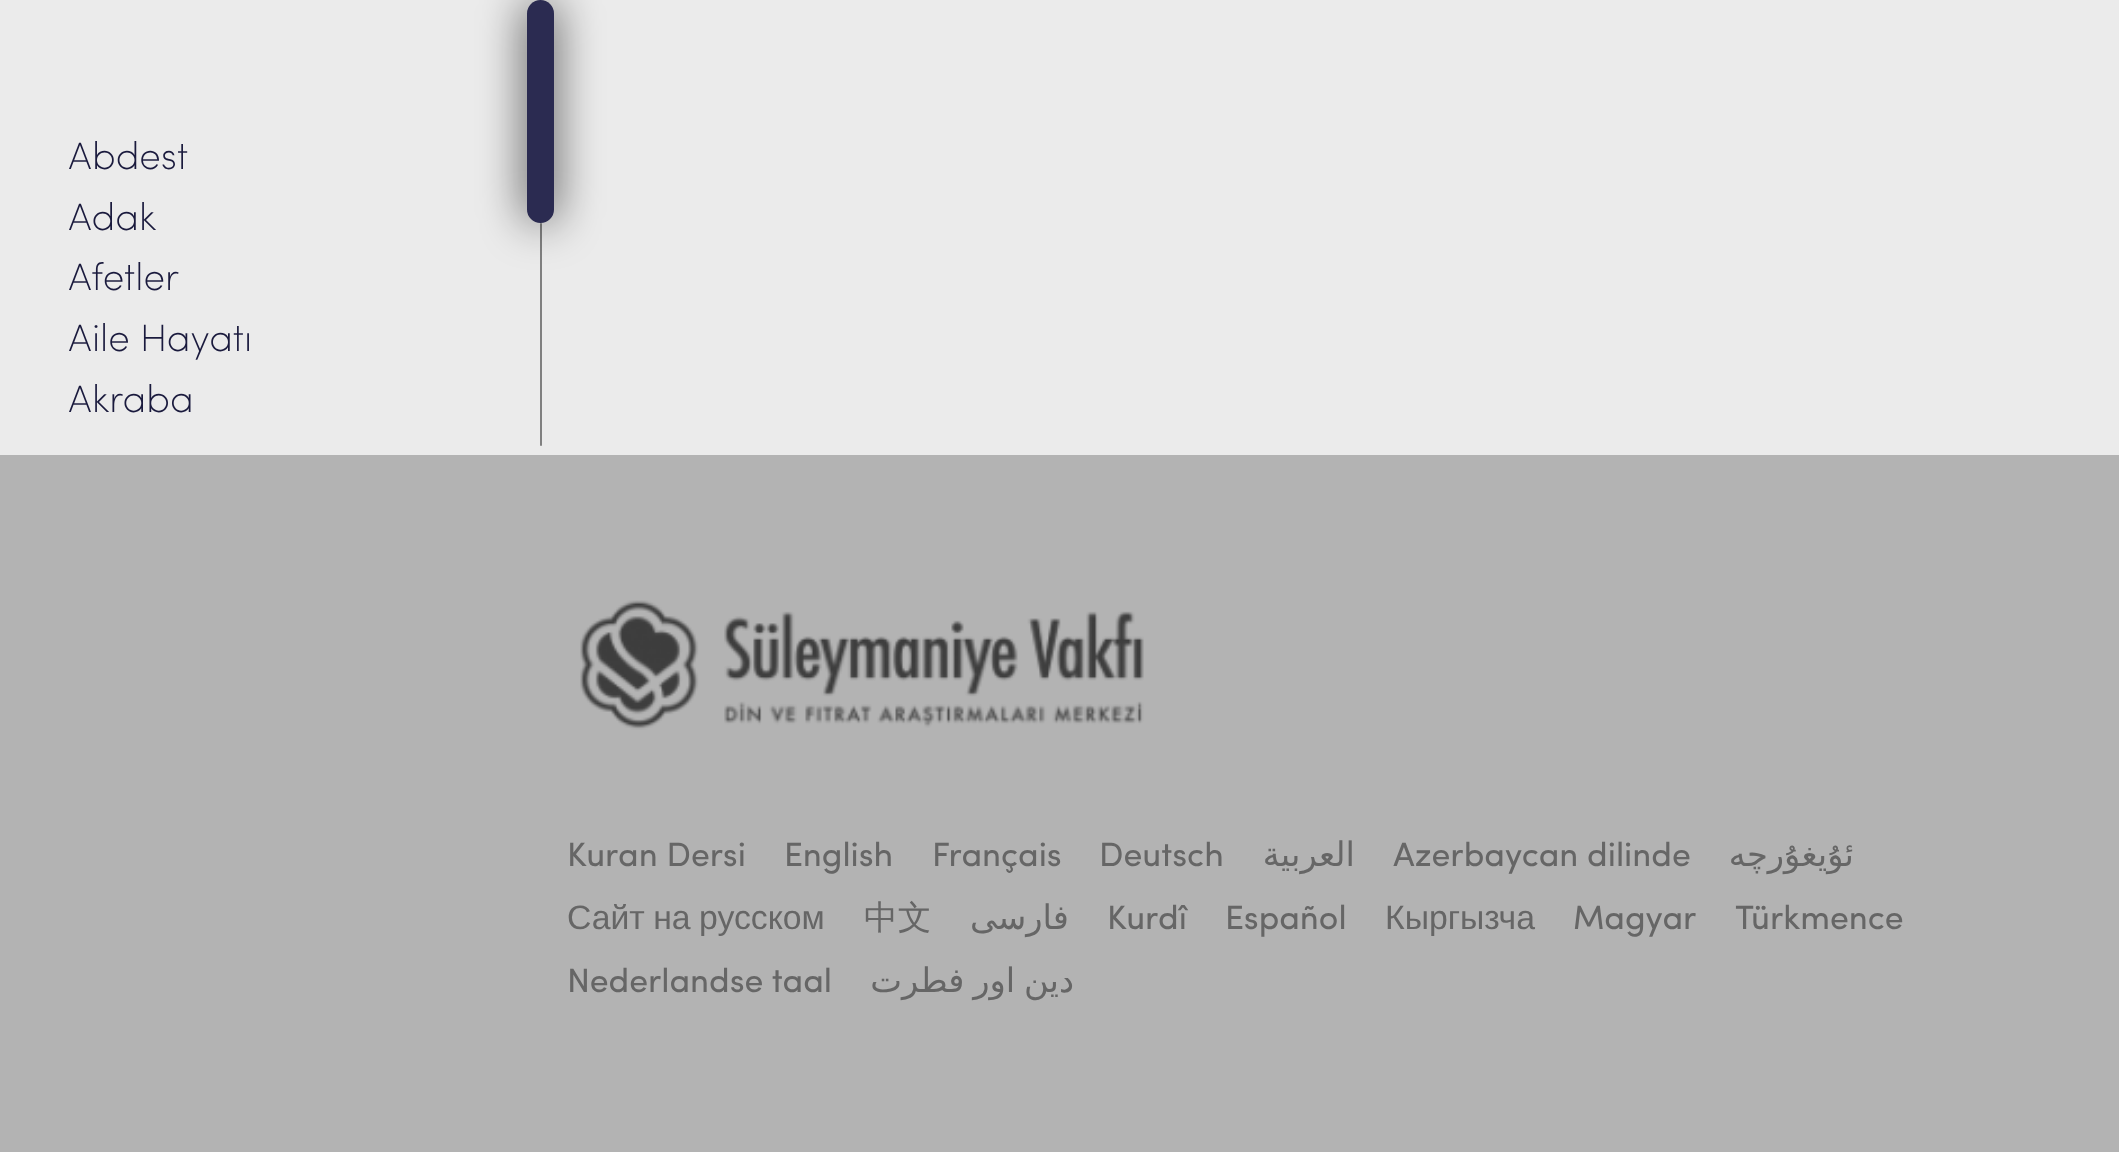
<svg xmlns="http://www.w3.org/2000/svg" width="2119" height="1152">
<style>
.a{font:200 38.25px Sofia;fill:#1a1a3d}
.b{font:33.75px Sofia;fill:#666}
.c{font:33.75px DejaVu Sans;direction:rtl;fill:#666}
.d{font:33.75px Liberation Sans;fill:#666}
.e{font:500 33.75px WenQuanYi Zen Hei;fill:#666}
</style>
<rect width="100%" height="100%" fill="#b3b3b3"/>
<path fill="#ebebeb" d="M0 0h2119v455H0z"/>
<rect fill="#808080" x="540" y="223" width="2" height="223" rx="1"/>
<rect fill="#000000ba" filter="blur(22.5px)" x="527" width="27" height="223" rx="13.5"/>
<rect fill="#2b2b51" x="527" width="27" height="223" rx="13.5"/>
<image href="1.png" x="580" y="600" width="564" height="130"/>
<text class="a" x="68" y="169">Abdest</text>
<text class="a" x="68" y="230">Adak</text>
<text class="a" x="68" y="290">Afetler</text>
<text class="a" x="68" y="351">Aile Hayatı</text>
<text class="a" x="68" y="412">Akraba</text>
<text class="b" x="567" y="866">Kuran Dersi</text>
<text class="b" x="784" y="866">English</text>
<text class="b" x="932" y="866">Français</text>
<text class="b" x="1099" y="866">Deutsch</text>
<text class="c" x="1355" y="866">العربية</text>
<text class="b" x="1393" y="866">Azerbaycan dilinde</text>
<text class="c" x="1854" y="866">ئۇيغۇرچە</text>
<text class="d" x="567" y="929" word-spacing="-1">Сайт на русском</text>
<text class="e" x="864" y="929">中文</text>
<text class="c" x="1069" y="929">فارسی</text>
<text class="b" x="1107" y="929">Kurdî</text>
<text class="b" x="1225" y="929">Español</text>
<text class="d" x="1385" y="929">Кыргызча</text>
<text class="b" x="1573" y="929">Magyar</text>
<text class="b" x="1735" y="929">Türkmence</text>
<text class="b" x="567" y="992">Nederlandse taal</text>
<text class="c" x="1074" y="992" word-spacing="-2">دین اور فطرت</text>
</svg>
